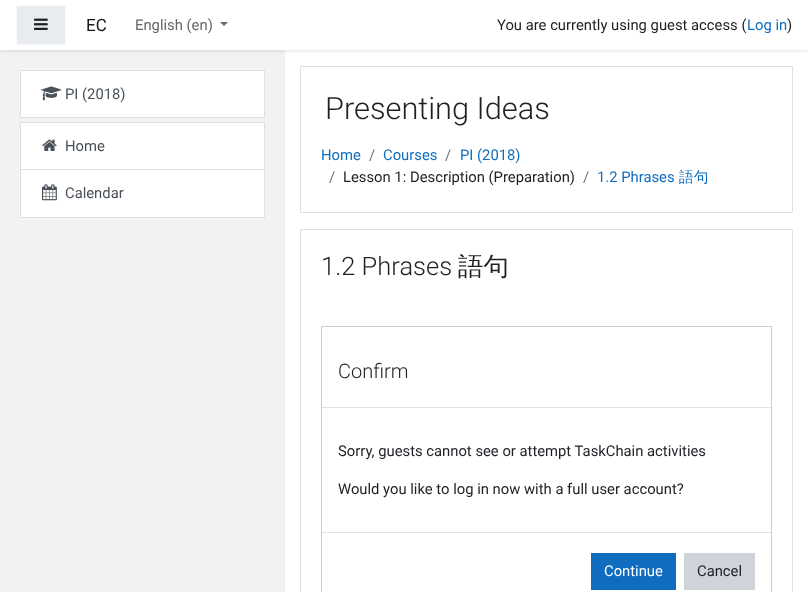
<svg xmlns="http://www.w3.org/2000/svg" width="808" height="592">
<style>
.a{font:17px Roboto;fill:#1a1a1a}
.b{font:14.8px Roboto;fill:#666}
.c{font:14.8px Roboto;fill:#1d2125}
.d{font:14.8px Roboto;fill:#0f6cbf}
.e{font:14.8px Roboto;fill:#495057}
.f{font:300 30.75px Roboto;fill:#1d2125}
.g{font:14.8px Roboto;fill:#6a737b}
.h{font:500 14.8px WenQuanYi Zen Hei;fill:#0f6cbf}
.i{font:300 25.5px Roboto;fill:#1d2125}
.j{font:500 25.5px WenQuanYi Zen Hei;fill:#1d2125}
.k{font:300 20px Roboto;fill:#1d2125}
.l{font:14.8px Roboto;fill:#fff}
</style>
<defs>
<clipPath id="clip1"><path d="M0 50h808v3H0z"/></clipPath>
</defs>
<rect width="100%" height="100%" fill="#fff"/>
<path fill="#f2f2f2" d="M0 50h285v542H0z"/>
<g clip-path="url(#clip1)">
<path fill="#00000014" filter="blur(2px)" d="M0 2h808v50H0z"/>
</g>
<path fill="#e9ecef" stroke="#f8f9fa" d="M16.5 5.5h49v39H16.5z"/>
<image href="1.png" x="34" y="18" width="14" height="12"/>
<path fill="#666" d="M220 22h8l-4 4z"/>
<path fill="#fff" stroke="#dfdfdf" d="M20.5 70.5h244v47H20.5z"/>
<image href="2.png" x="41" y="86" width="21" height="15"/>
<path fill="#fff" stroke="#dfdfdf" d="M20.5 122.5h244v47H20.5z"/>
<image href="3.png" x="42" y="139" width="15" height="12"/>
<path fill="#fff" stroke="#dfdfdf" d="M20.5 169.5h244v48H20.5z"/>
<image href="4.png" x="42" y="184" width="15" height="17"/>
<path fill="none" stroke="#dfdfdf" d="M300.5 66.5h492v146H300.5z"/>
<path fill="none" stroke="#dfdfdf" d="M300.5 229.5h492v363H300.5z"/>
<path fill="none" stroke="#ccc" d="M321.5 326.5h450v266H321.5z"/>
<path fill="#dee2e6" d="M322 407h449v1H322z"/>
<path fill="#dee2e6" d="M322 532h449v1H322z"/>
<path fill="#0f6cbf" d="M591 553h85v37H591z"/>
<path fill="#ced4da" d="M684 553h71v37H684z"/>
<text class="a" x="86" y="31">EC</text>
<text class="b" x="135" y="30">English (en)</text>
<text class="c" x="497" y="30">You are currently using guest access (</text>
<text class="d" x="747" y="30">Log in</text>
<text class="c" x="787" y="30">)</text>
<text class="e" x="65" y="99">PI (2018)</text>
<text class="e" x="65" y="151">Home</text>
<text class="e" x="65" y="198">Calendar</text>
<text class="f" x="325" y="119">Presenting Ideas</text>
<text class="d" x="321" y="160">Home</text>
<text class="g" x="369" y="160">/</text>
<text class="d" x="383" y="160">Courses</text>
<text class="g" x="445" y="160">/</text>
<text class="d" x="460" y="160">PI (2018)</text>
<text class="g" x="329" y="182">/</text>
<text class="c" x="343" y="182">Lesson 1: Description (Preparation)</text>
<text class="g" x="583" y="182">/</text>
<text class="d" x="597" y="182">1.2 Phrases</text>
<text class="h" x="679" y="182">語句</text>
<text class="i" x="321" y="275">1.2 Phrases</text>
<text class="j" x="458" y="275">語句</text>
<text class="k" x="338" y="378">Confirm</text>
<text class="c" x="338" y="456">Sorry, guests cannot see or attempt TaskChain activities</text>
<text class="c" x="338" y="494">Would you like to log in now with a full user account?</text>
<text class="l" x="604" y="576">Continue</text>
<text class="c" x="697" y="576">Cancel</text>
</svg>
